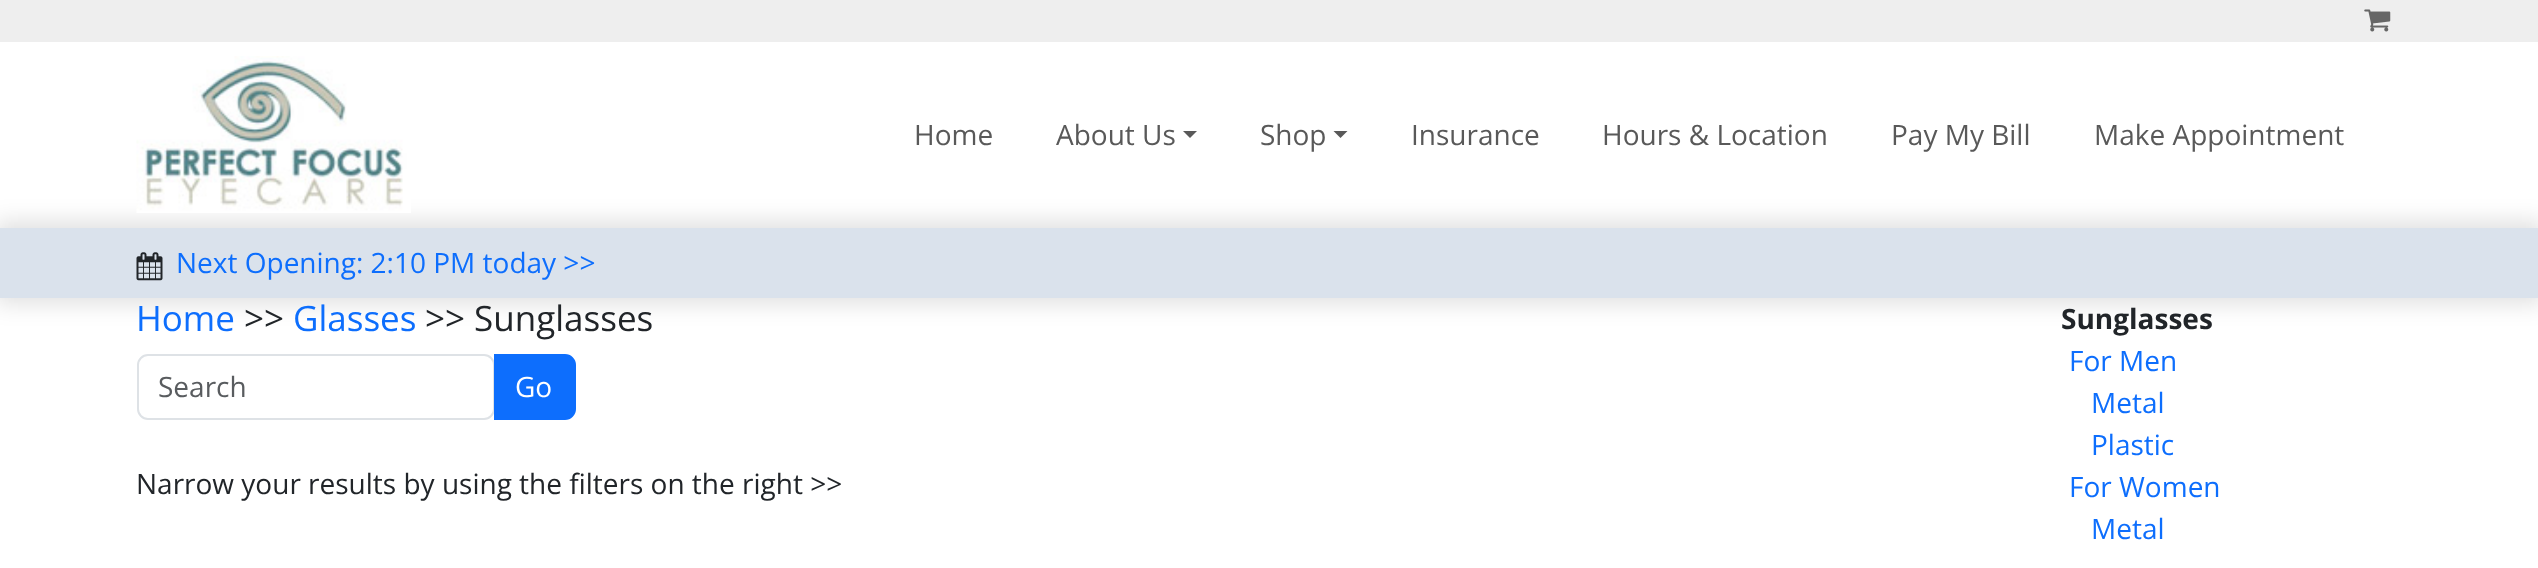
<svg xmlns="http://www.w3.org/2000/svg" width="2538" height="568">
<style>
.a{font:28px Open Sans;fill:#595959}
.b{font:28px Open Sans;fill:#0d6efd}
.c{font:35px Open Sans;fill:#0d6efd}
.d{font:35px Open Sans;fill:#212529}
.e{font:28px Open Sans;fill:#595c5f}
.f{font:28px Open Sans;fill:#fff}
.g{font:28px Open Sans;fill:#212529}
.h{font:bold 28px Open Sans;fill:#212529}
</style>
<rect width="100%" height="100%" fill="#fff"/>
<path fill="#eee" d="M0 0h2538v42H0z"/>
<image href="1.png" x="2364" y="9" width="27" height="23"/>
<path fill="#00000021" filter="blur(11.5px)" d="M-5 222h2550v81H-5z"/>
<image href="2.png" x="136" y="56" width="275" height="157"/>
<path fill="#595959" d="M1183 131h14l-7 7z"/>
<path fill="#595959" d="M1333.5 131h14l-7 7z"/>
<path fill="#dae2ec" d="M0 228h2538v70H0z"/>
<image href="3.png" x="136" y="252" width="27" height="29"/>
<rect fill="none" stroke="#dee2e6" stroke-width="2" x="138" y="355" width="356" height="64" rx="10"/>
<path fill="#0d6efd" stroke="#0d6efd" stroke-width="2" d="M495 355h70c5.5 0 10 4.5 10 10v44c0 5.5-4.5 10-10 10h-70z"/>
<text class="a" x="914" y="145">Home</text>
<text class="a" x="1056" y="145">About Us</text>
<text class="a" x="1260" y="145">Shop</text>
<text class="a" x="1411" y="145">Insurance</text>
<text class="a" x="1602" y="145">Hours &amp; Location</text>
<text class="a" x="1891" y="145">Pay My Bill</text>
<text class="a" x="2094" y="145">Make Appointment</text>
<text class="b" x="176" y="273">Next Opening: 2:10 PM today &gt;&gt;</text>
<text class="c" x="136" y="331">Home</text>
<text class="d" x="244" y="331">&gt;&gt;</text>
<text class="c" x="293" y="331">Glasses</text>
<text class="d" x="425" y="331">&gt;&gt; Sunglasses</text>
<text class="e" x="158" y="397">Search</text>
<text class="f" x="515" y="397">Go</text>
<text class="g" x="136" y="494">Narrow your results by using the filters on the right &gt;&gt;</text>
<text class="h" x="2061" y="329">Sunglasses</text>
<text class="b" x="2069" y="371">For Men</text>
<text class="b" x="2091" y="413">Metal</text>
<text class="b" x="2091" y="455">Plastic</text>
<text class="b" x="2069" y="497">For Women</text>
<text class="b" x="2091" y="539">Metal</text>
</svg>
